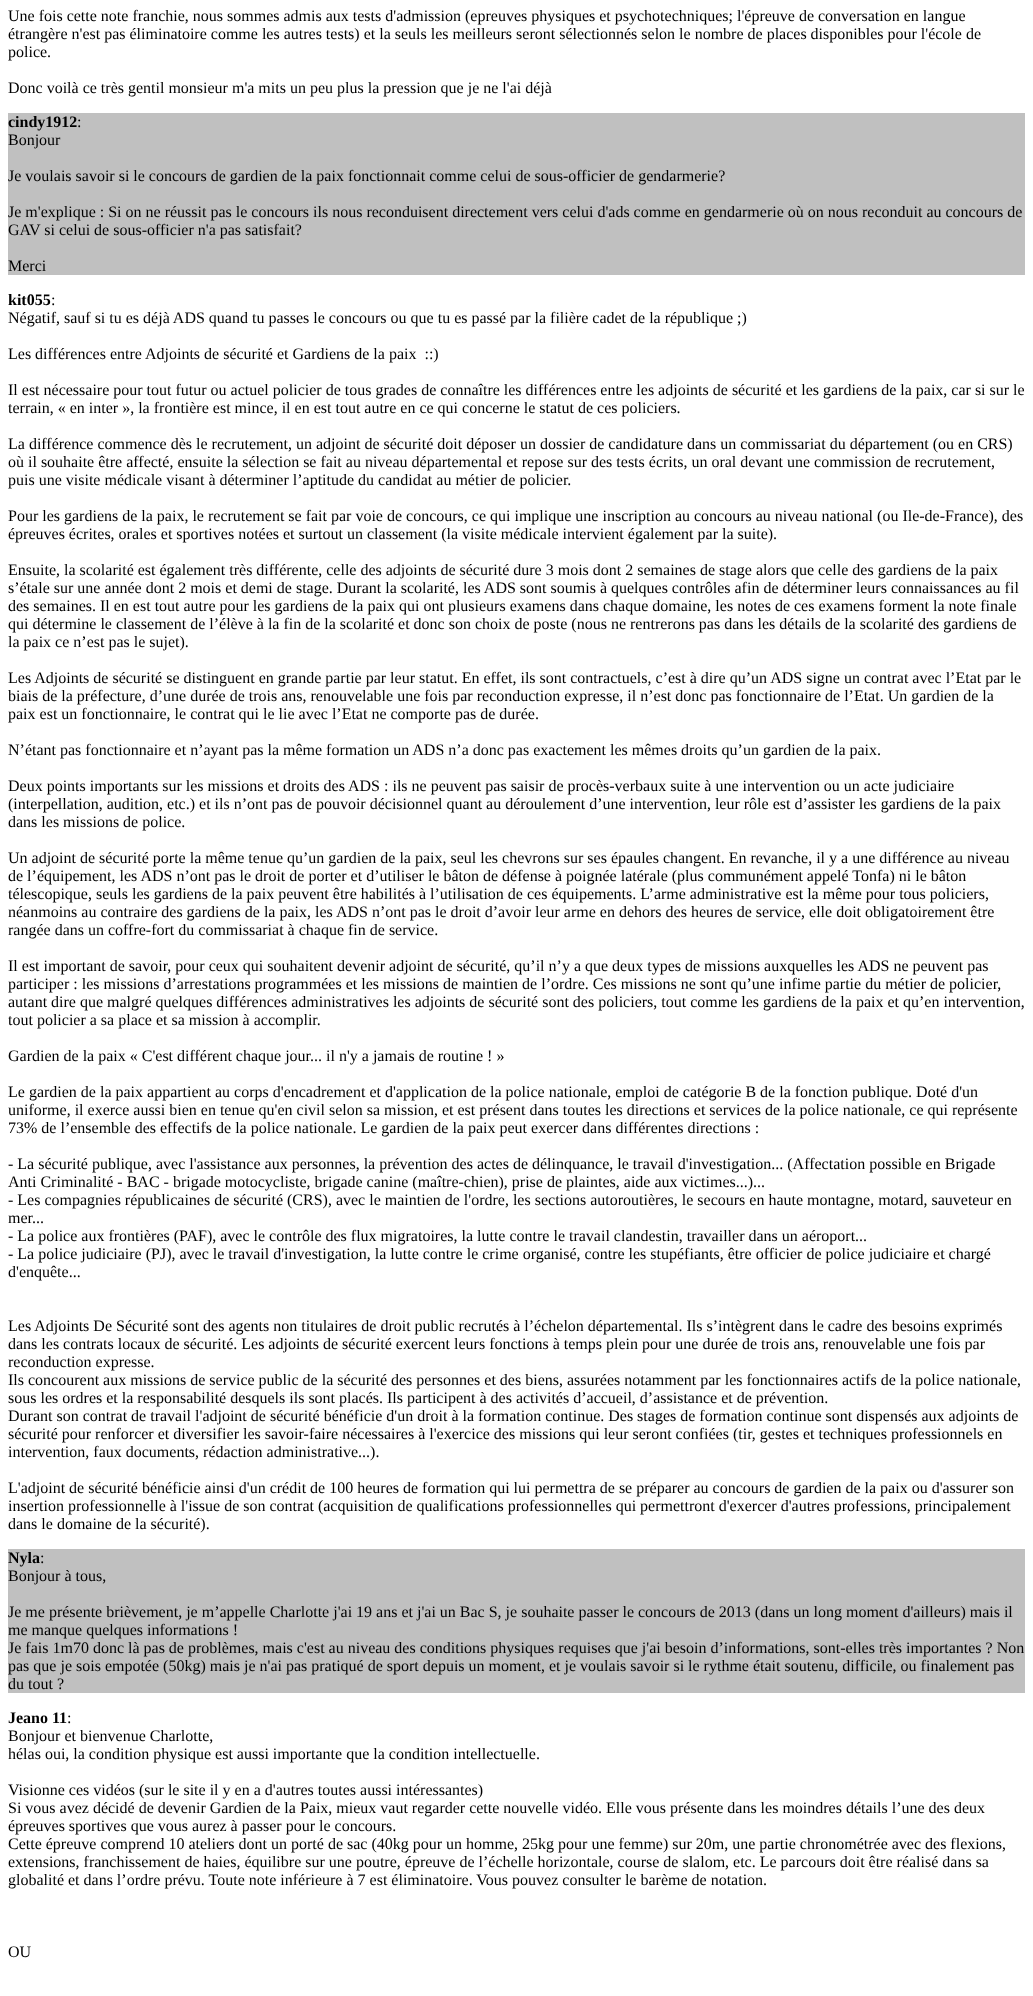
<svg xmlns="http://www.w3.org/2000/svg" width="1033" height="1996">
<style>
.a{font:16px Liberation Serif;fill:#000}
.b{font:bold 16px Liberation Serif;fill:#000}
</style>
<rect width="100%" height="100%" fill="#fff"/>
<path fill="#c0c0c0" d="M8 113h1017v162H8z"/>
<path fill="#c0c0c0" d="M8 1549h1017v144H8z"/>
<text class="a" x="8" y="21">Une fois cette note franchie, nous sommes admis aux tests d'admission (epreuves physiques et psychotechniques; l'épreuve de conversation en langue</text>
<text class="a" x="8" y="39">étrangère n'est pas éliminatoire comme les autres tests) et la seuls les meilleurs seront sélectionnés selon le nombre de places disponibles pour l'école de</text>
<text class="a" x="8" y="57">police.</text>
<text class="a" x="8" y="93">Donc voilà ce très gentil monsieur m'a mits un peu plus la pression que je ne l'ai déjà</text>
<text class="b" x="8" y="127">cindy1912</text>
<text class="a" x="77" y="127">:</text>
<text class="a" x="8" y="145">Bonjour</text>
<text class="a" x="8" y="181">Je voulais savoir si le concours de gardien de la paix fonctionnait comme celui de sous-officier de gendarmerie?</text>
<text class="a" x="8" y="217">Je m'explique : Si on ne réussit pas le concours ils nous reconduisent directement vers celui d'ads comme en gendarmerie où on nous reconduit au concours de</text>
<text class="a" x="8" y="235">GAV si celui de sous-officier n'a pas satisfait?</text>
<text class="a" x="8" y="271">Merci</text>
<text class="b" x="8" y="305">kit055</text>
<text class="a" x="51" y="305">:</text>
<text class="a" x="8" y="323">Négatif, sauf si tu es déjà ADS quand tu passes le concours ou que tu es passé par la filière cadet de la république ;)</text>
<text class="a" xml:space="preserve" x="8" y="359">Les différences entre Adjoints de sécurité et Gardiens de la paix  ::)</text>
<text class="a" x="8" y="395">Il est nécessaire pour tout futur ou actuel policier de tous grades de connaître les différences entre les adjoints de sécurité et les gardiens de la paix, car si sur le</text>
<text class="a" x="8" y="413">terrain, « en inter », la frontière est mince, il en est tout autre en ce qui concerne le statut de ces policiers.</text>
<text class="a" x="8" y="449">La différence commence dès le recrutement, un adjoint de sécurité doit déposer un dossier de candidature dans un commissariat du département (ou en CRS)</text>
<text class="a" x="8" y="467">où il souhaite être affecté, ensuite la sélection se fait au niveau départemental et repose sur des tests écrits, un oral devant une commission de recrutement,</text>
<text class="a" x="8" y="485">puis une visite médicale visant à déterminer l’aptitude du candidat au métier de policier.</text>
<text class="a" x="8" y="521">Pour les gardiens de la paix, le recrutement se fait par voie de concours, ce qui implique une inscription au concours au niveau national (ou Ile-de-France), des</text>
<text class="a" x="8" y="539">épreuves écrites, orales et sportives notées et surtout un classement (la visite médicale intervient également par la suite).</text>
<text class="a" x="8" y="575">Ensuite, la scolarité est également très différente, celle des adjoints de sécurité dure 3 mois dont 2 semaines de stage alors que celle des gardiens de la paix</text>
<text class="a" x="8" y="593">s’étale sur une année dont 2 mois et demi de stage. Durant la scolarité, les ADS sont soumis à quelques contrôles afin de déterminer leurs connaissances au fil</text>
<text class="a" x="8" y="611">des semaines. Il en est tout autre pour les gardiens de la paix qui ont plusieurs examens dans chaque domaine, les notes de ces examens forment la note finale</text>
<text class="a" x="8" y="629">qui détermine le classement de l’élève à la fin de la scolarité et donc son choix de poste (nous ne rentrerons pas dans les détails de la scolarité des gardiens de</text>
<text class="a" x="8" y="647">la paix ce n’est pas le sujet).</text>
<text class="a" x="8" y="683">Les Adjoints de sécurité se distinguent en grande partie par leur statut. En effet, ils sont contractuels, c’est à dire qu’un ADS signe un contrat avec l’Etat par le</text>
<text class="a" x="8" y="701">biais de la préfecture, d’une durée de trois ans, renouvelable une fois par reconduction expresse, il n’est donc pas fonctionnaire de l’Etat. Un gardien de la</text>
<text class="a" x="8" y="719">paix est un fonctionnaire, le contrat qui le lie avec l’Etat ne comporte pas de durée.</text>
<text class="a" x="8" y="755">N’étant pas fonctionnaire et n’ayant pas la même formation un ADS n’a donc pas exactement les mêmes droits qu’un gardien de la paix.</text>
<text class="a" x="8" y="791">Deux points importants sur les missions et droits des ADS : ils ne peuvent pas saisir de procès-verbaux suite à une intervention ou un acte judiciaire</text>
<text class="a" x="8" y="809">(interpellation, audition, etc.) et ils n’ont pas de pouvoir décisionnel quant au déroulement d’une intervention, leur rôle est d’assister les gardiens de la paix</text>
<text class="a" x="8" y="827">dans les missions de police.</text>
<text class="a" x="8" y="863">Un adjoint de sécurité porte la même tenue qu’un gardien de la paix, seul les chevrons sur ses épaules changent. En revanche, il y a une différence au niveau</text>
<text class="a" x="8" y="881">de l’équipement, les ADS n’ont pas le droit de porter et d’utiliser le bâton de défense à poignée latérale (plus communément appelé Tonfa) ni le bâton</text>
<text class="a" x="8" y="899">télescopique, seuls les gardiens de la paix peuvent être habilités à l’utilisation de ces équipements. L’arme administrative est la même pour tous policiers,</text>
<text class="a" x="8" y="917">néanmoins au contraire des gardiens de la paix, les ADS n’ont pas le droit d’avoir leur arme en dehors des heures de service, elle doit obligatoirement être</text>
<text class="a" x="8" y="935">rangée dans un coffre-fort du commissariat à chaque fin de service.</text>
<text class="a" x="8" y="971">Il est important de savoir, pour ceux qui souhaitent devenir adjoint de sécurité, qu’il n’y a que deux types de missions auxquelles les ADS ne peuvent pas</text>
<text class="a" x="8" y="989">participer : les missions d’arrestations programmées et les missions de maintien de l’ordre. Ces missions ne sont qu’une infime partie du métier de policier,</text>
<text class="a" x="8" y="1007">autant dire que malgré quelques différences administratives les adjoints de sécurité sont des policiers, tout comme les gardiens de la paix et qu’en intervention,</text>
<text class="a" x="8" y="1025">tout policier a sa place et sa mission à accomplir.</text>
<text class="a" x="8" y="1061">Gardien de la paix « C'est différent chaque jour... il n'y a jamais de routine ! »</text>
<text class="a" x="8" y="1097">Le gardien de la paix appartient au corps d'encadrement et d'application de la police nationale, emploi de catégorie B de la fonction publique. Doté d'un</text>
<text class="a" x="8" y="1115">uniforme, il exerce aussi bien en tenue qu'en civil selon sa mission, et est présent dans toutes les directions et services de la police nationale, ce qui représente</text>
<text class="a" x="8" y="1133">73% de l’ensemble des effectifs de la police nationale. Le gardien de la paix peut exercer dans différentes directions :</text>
<text class="a" x="8" y="1169">- La sécurité publique, avec l'assistance aux personnes, la prévention des actes de délinquance, le travail d'investigation... (Affectation possible en Brigade</text>
<text class="a" x="8" y="1187">Anti Criminalité - BAC - brigade motocycliste, brigade canine (maître-chien), prise de plaintes, aide aux victimes...)...</text>
<text class="a" x="8" y="1205">- Les compagnies républicaines de sécurité (CRS), avec le maintien de l'ordre, les sections autoroutières, le secours en haute montagne, motard, sauveteur en</text>
<text class="a" x="8" y="1223">mer...</text>
<text class="a" x="8" y="1241">- La police aux frontières (PAF), avec le contrôle des flux migratoires, la lutte contre le travail clandestin, travailler dans un aéroport...</text>
<text class="a" x="8" y="1259">- La police judiciaire (PJ), avec le travail d'investigation, la lutte contre le crime organisé, contre les stupéfiants, être officier de police judiciaire et chargé</text>
<text class="a" x="8" y="1277">d'enquête...</text>
<text class="a" x="8" y="1331">Les Adjoints De Sécurité sont des agents non titulaires de droit public recrutés à l’échelon départemental. Ils s’intègrent dans le cadre des besoins exprimés</text>
<text class="a" x="8" y="1349">dans les contrats locaux de sécurité. Les adjoints de sécurité exercent leurs fonctions à temps plein pour une durée de trois ans, renouvelable une fois par</text>
<text class="a" x="8" y="1367">reconduction expresse.</text>
<text class="a" x="8" y="1385">Ils concourent aux missions de service public de la sécurité des personnes et des biens, assurées notamment par les fonctionnaires actifs de la police nationale,</text>
<text class="a" x="8" y="1403">sous les ordres et la responsabilité desquels ils sont placés. Ils participent à des activités d’accueil, d’assistance et de prévention.</text>
<text class="a" x="8" y="1421">Durant son contrat de travail l'adjoint de sécurité bénéficie d'un droit à la formation continue. Des stages de formation continue sont dispensés aux adjoints de</text>
<text class="a" x="8" y="1439">sécurité pour renforcer et diversifier les savoir-faire nécessaires à l'exercice des missions qui leur seront confiées (tir, gestes et techniques professionnels en</text>
<text class="a" x="8" y="1457">intervention, faux documents, rédaction administrative...).</text>
<text class="a" x="8" y="1493">L'adjoint de sécurité bénéficie ainsi d'un crédit de 100 heures de formation qui lui permettra de se préparer au concours de gardien de la paix ou d'assurer son</text>
<text class="a" x="8" y="1511">insertion professionnelle à l'issue de son contrat (acquisition de qualifications professionnelles qui permettront d'exercer d'autres professions, principalement</text>
<text class="a" x="8" y="1529">dans le domaine de la sécurité).</text>
<text class="b" x="8" y="1563">Nyla</text>
<text class="a" x="40" y="1563">:</text>
<text class="a" x="8" y="1581">Bonjour à tous,</text>
<text class="a" x="8" y="1617">Je me présente brièvement, je m’appelle Charlotte j'ai 19 ans et j'ai un Bac S, je souhaite passer le concours de 2013 (dans un long moment d'ailleurs) mais il</text>
<text class="a" x="8" y="1635">me manque quelques informations !</text>
<text class="a" x="8" y="1653">Je fais 1m70 donc là pas de problèmes, mais c'est au niveau des conditions physiques requises que j'ai besoin d’informations, sont-elles très importantes ? Non</text>
<text class="a" x="8" y="1671">pas que je sois empotée (50kg) mais je n'ai pas pratiqué de sport depuis un moment, et je voulais savoir si le rythme était soutenu, difficile, ou finalement pas</text>
<text class="a" x="8" y="1689">du tout ?</text>
<text class="b" x="8" y="1723">Jeano 11</text>
<text class="a" x="67" y="1723">:</text>
<text class="a" x="8" y="1741">Bonjour et bienvenue Charlotte,</text>
<text class="a" x="8" y="1759">hélas oui, la condition physique est aussi importante que la condition intellectuelle.</text>
<text class="a" x="8" y="1795">Visionne ces vidéos (sur le site il y en a d'autres toutes aussi intéressantes)</text>
<text class="a" x="8" y="1813">Si vous avez décidé de devenir Gardien de la Paix, mieux vaut regarder cette nouvelle vidéo. Elle vous présente dans les moindres détails l’une des deux</text>
<text class="a" x="8" y="1831">épreuves sportives que vous aurez à passer pour le concours.</text>
<text class="a" x="8" y="1849">Cette épreuve comprend 10 ateliers dont un porté de sac (40kg pour un homme, 25kg pour une femme) sur 20m, une partie chronométrée avec des flexions,</text>
<text class="a" x="8" y="1867">extensions, franchissement de haies, équilibre sur une poutre, épreuve de l’échelle horizontale, course de slalom, etc. Le parcours doit être réalisé dans sa</text>
<text class="a" x="8" y="1885">globalité et dans l’ordre prévu. Toute note inférieure à 7 est éliminatoire. Vous pouvez consulter le barème de notation.</text>
<text class="a" x="8" y="1957">OU</text>
</svg>
